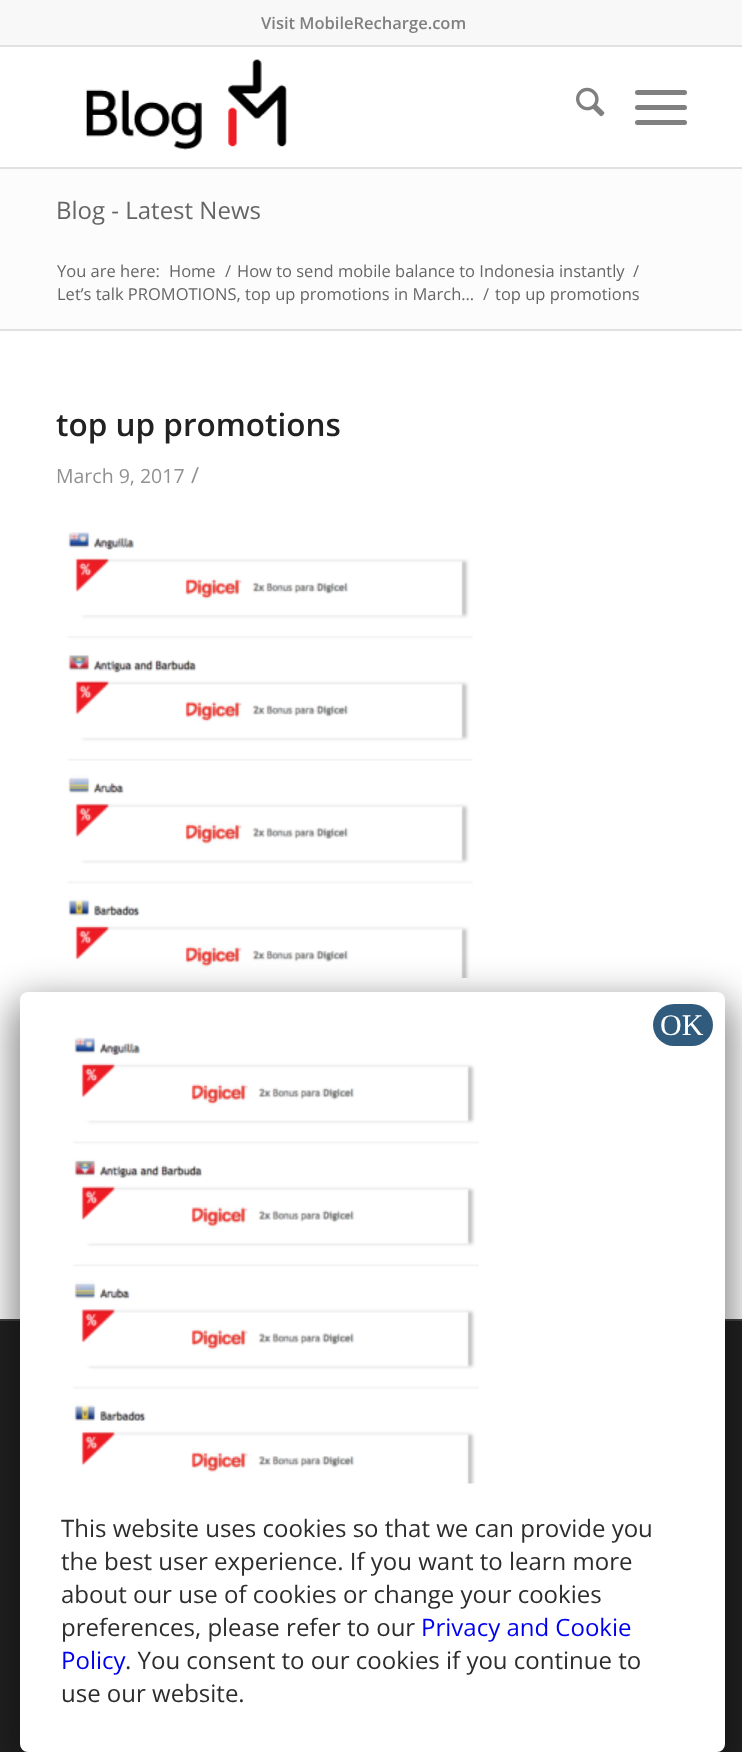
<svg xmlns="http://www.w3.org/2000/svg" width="742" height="1752">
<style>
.a{font:600 16.5px Open Sans;fill:#808080}
.b{font:24px Open Sans;fill:#666}
.c{font:16.5px Open Sans;fill:#666}
.d{font:600 31.5px Open Sans;fill:#222}
.e{font:19.5px Open Sans;fill:#919191}
.f{font:22px Open Sans;fill:#919191}
.g{font:30px Liberation Serif;fill:#fff}
.h{font:24px Open Sans;fill:#2d2d2d}
.i{font:24px Open Sans;fill:#00e}
</style>
<rect width="100%" height="100%" fill="#fff"/>
<path fill="#f8f8f8" d="M0 0h742v45H0z"/>
<path fill="#e1e1e1" d="M0 45h742v2H0z"/>
<path fill="#e1e1e1" d="M0 167h742v2H0z"/>
<image href="1.png" x="86" y="59" width="201" height="91"/>
<image href="2.png" x="576" y="87" width="29" height="30"/>
<rect fill="#808080" x="635" y="105" width="52" height="5" rx="2.5"/>
<rect fill="#808080" x="635" y="90" width="52" height="5" rx="2.5"/>
<rect fill="#808080" x="635" y="120" width="52" height="5" rx="2.5"/>
<path fill="#fcfcfc" d="M0 169h742v160H0z"/>
<path fill="#e1e1e1" d="M0 329h742v2H0z"/>
<image href="3.png" x="67" y="532" width="406" height="446"/>
<path fill="#222" d="M0 1321h742v431H0z"/>
<path fill="#444" d="M0 1319h742v2H0z"/>
<rect fill="#02020280" filter="blur(19px)" x="14" y="1001" width="717" height="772" rx="14"/>
<rect fill="#fff" x="20" y="992" width="705" height="760" rx="8"/>
<rect fill="#315b7c" x="653" y="1004" width="60" height="42" rx="21"/>
<image href="4.png" x="73" y="1037" width="406" height="447"/>
<text class="a" x="261" y="29">Visit MobileRecharge.com</text>
<text class="b" x="56" y="219">Blog - Latest News</text>
<text class="c" x="57" y="277">You are here:</text>
<text class="c" x="169" y="277">Home</text>
<text class="c" x="225" y="277">/</text>
<text class="c" x="237" y="277">How to send mobile balance to Indonesia instantly</text>
<text class="c" x="633" y="277">/</text>
<text class="c" x="57" y="300">Let’s talk PROMOTIONS, top up promotions in March…</text>
<text class="c" x="483" y="300">/</text>
<text class="c" x="495" y="300">top up promotions</text>
<text class="d" x="56" y="436">top up promotions</text>
<text class="e" x="56" y="483">March 9, 2017</text>
<text class="f" x="191" y="483">/</text>
<text class="g" x="660" y="1035">OK</text>
<text class="h" x="61" y="1537">This website uses cookies so that we can provide you</text>
<text class="h" x="61" y="1570">the best user experience. If you want to learn more</text>
<text class="h" x="61" y="1603">about our use of cookies or change your cookies</text>
<text class="h" x="61" y="1636">preferences, please refer to our</text>
<text class="i" x="421" y="1636">Privacy and Cookie</text>
<text class="i" x="61" y="1669">Policy</text>
<text class="h" x="125" y="1669">. You consent to our cookies if you continue to</text>
<text class="h" x="61" y="1702">use our website.</text>
</svg>
